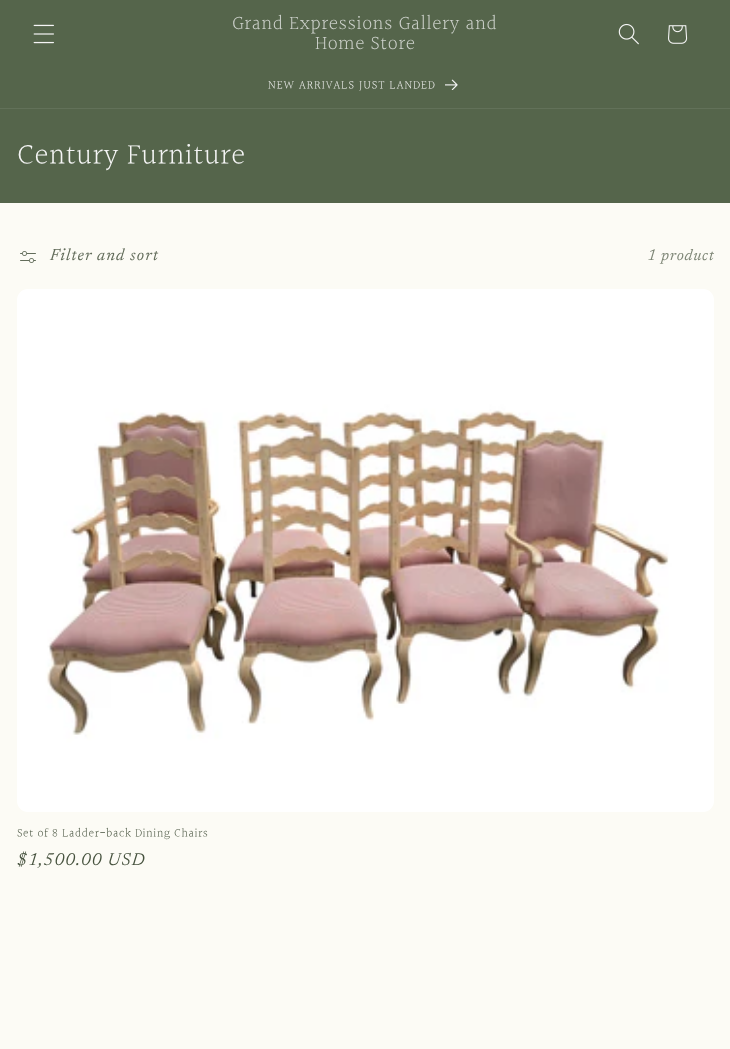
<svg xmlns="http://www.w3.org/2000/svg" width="730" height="1049">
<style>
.a{font:300 20px Halant;letter-spacing:0.6px;fill:#cdd1cb}
.b{font:300 12px Halant;letter-spacing:1.1px;fill:#f5f5f5}
.c{font:300 30px Halant;letter-spacing:0.6px;fill:#f5f5f5}
.d{font:italic 16.5px Newsreader;letter-spacing:1.1px;fill:#616b59}
.e{font:italic 15.5px 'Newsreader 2';letter-spacing:0.75px;fill:#7d8575}
.f{font:300 12px Halant;letter-spacing:0.6px;fill:#46523e}
.g{font:italic 17.5px 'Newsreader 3';letter-spacing:1.1px;fill:#46523e}
</style>
<rect width="100%" height="100%" fill="#fcfbf5"/>
<path fill="#55654b" d="M0 0h730v108H0z"/>
<image href="1.png" x="33" y="24" width="21" height="20"/>
<image href="2.png" x="618" y="23" width="21" height="22"/>
<image href="3.png" x="668" y="25" width="20" height="19"/>
<path fill="#627159" d="M0 108h730v1H0z"/>
<image href="4.png" x="445" y="79" width="13" height="11"/>
<path fill="#55654b" d="M0 109h730v94H0z"/>
<image href="5.png" x="20" y="251" width="16" height="12"/>
<image href="6.png" x="17" y="289" width="697" height="523"/>
<text class="a" x="232" y="30">Grand Expressions Gallery and</text>
<text class="a" x="315" y="50">Home Store</text>
<text class="b" x="268" y="89">NEW ARRIVALS JUST LANDED</text>
<text class="c" x="17" y="165">Century Furniture</text>
<text class="d" x="50" y="260">Filter and sort</text>
<text class="e" x="647" y="260">1 product</text>
<text class="f" x="17" y="837">Set of 8 Ladder-back Dining Chairs</text>
<text class="g" x="17" y="865">$1,500.00 USD</text>
</svg>
